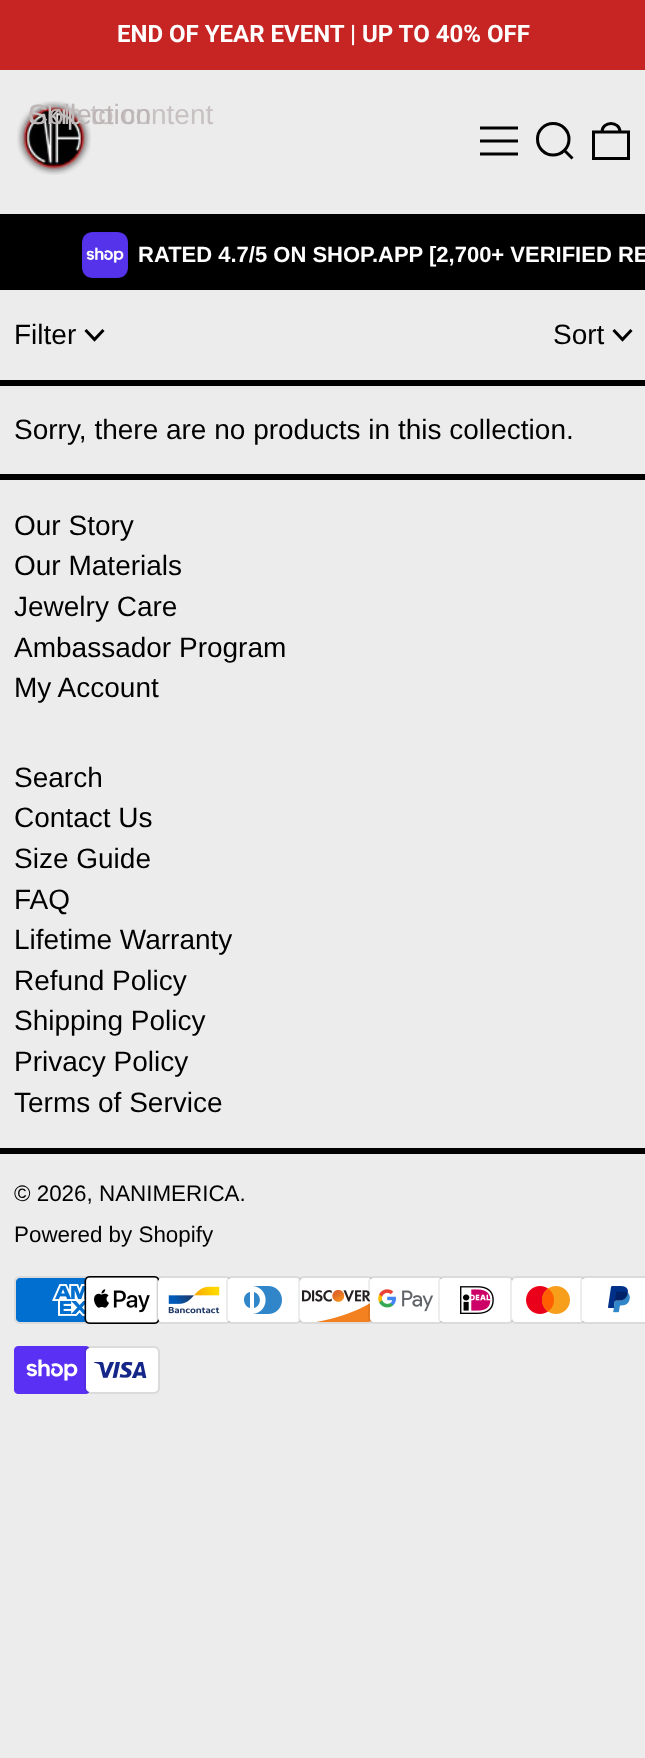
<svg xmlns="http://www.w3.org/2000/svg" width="645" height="1758">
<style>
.a{font:bold 24px Roboto;fill:#fff}
.b{font:28px Liberation Sans;fill:#000}
.c{font:bold 22px Liberation Sans;fill:#fff}
.d{font:28px Liberation Sans;fill:#c7c1c1}
.e{font:28px Liberation Sans;fill:#beb6b6}
.f{font:22.4px Liberation Sans;fill:#000}
</style>
<rect width="100%" height="100%" fill="#ececec"/>
<path fill="#c62524" d="M0 0h645v70H0z"/>
<image href="1.png" x="17" y="101" width="74" height="74"/>
<path fill="none" stroke="#000" stroke-width="3" d="M480 128h38m-38 13h38m-38 13h38"/>
<path fill="none" stroke="#000" stroke-width="3" d="M537.5 139c0 9 7 16 15.5 16c9 0 16-7 16-16c0-8.5-7-15.5-16-15.5c-8.5 0-15.5 7-15.5 15.5zm27 11.5l8 8"/>
<path fill="none" stroke="#000" stroke-width="3" d="M593.5 132h35v26.5h-35zm26.5 0c0-11.5-18-11.5-18 0"/>
<path fill="#000" d="M0 474h645v6H0z"/>
<path fill="#000" d="M0 380h645v6H0z"/>
<path fill="none" stroke="#000" stroke-width="3" d="M85.5 330l9 9.5l9-9.5"/>
<path fill="none" stroke="#000" stroke-width="3" d="M613.5 330l9 9.5l9-9.5"/>
<path fill="#000" d="M0 214h645v76H0z"/>
<image href="2.png" x="82" y="232" width="46" height="46"/>
<path fill="#000" d="M0 1148h645v6H0z"/>
<image href="3.png" x="14" y="1276" width="73" height="48"/>
<image href="4.png" x="84" y="1276" width="76" height="48"/>
<image href="5.png" x="156" y="1276" width="75" height="48"/>
<image href="6.png" x="226" y="1276" width="76" height="48"/>
<image href="7.png" x="298" y="1276" width="75" height="48"/>
<image href="8.png" x="368" y="1276" width="75" height="48"/>
<image href="9.png" x="438" y="1276" width="76" height="48"/>
<image href="10.png" x="510" y="1276" width="75" height="48"/>
<image href="11.png" x="580" y="1276" width="65" height="48"/>
<image href="12.png" x="14" y="1346" width="76" height="48"/>
<image href="13.png" x="84" y="1346" width="76" height="48"/>
<text class="a" x="117" y="42">END OF YEAR EVENT | UP TO 40% OFF</text>
<text class="b" x="14" y="344">Filter</text>
<text class="b" x="553" y="344">Sort</text>
<text class="b" x="14" y="439">Sorry, there are no products in this collection.</text>
<text class="c" x="138" y="262">RATED 4.7/5 ON SHOP.APP [2,700+ VERIFIED RE</text>
<text class="d" x="28" y="124">Skip to content</text>
<text class="e" x="28" y="124">Collection</text>
<text class="b" x="14" y="535">Our Story</text>
<text class="b" x="14" y="575">Our Materials</text>
<text class="b" x="14" y="616">Jewelry Care</text>
<text class="b" x="14" y="657">Ambassador Program</text>
<text class="b" x="14" y="697">My Account</text>
<text class="b" x="14" y="787">Search</text>
<text class="b" x="14" y="827">Contact Us</text>
<text class="b" x="14" y="868">Size Guide</text>
<text class="b" x="14" y="909">FAQ</text>
<text class="b" x="14" y="949">Lifetime Warranty</text>
<text class="b" x="14" y="990">Refund Policy</text>
<text class="b" x="14" y="1030">Shipping Policy</text>
<text class="b" x="14" y="1071">Privacy Policy</text>
<text class="b" x="14" y="1112">Terms of Service</text>
<text class="f" x="14" y="1201">© 2026, NANIMERICA.</text>
<text class="f" x="14" y="1242">Powered by Shopify</text>
</svg>
